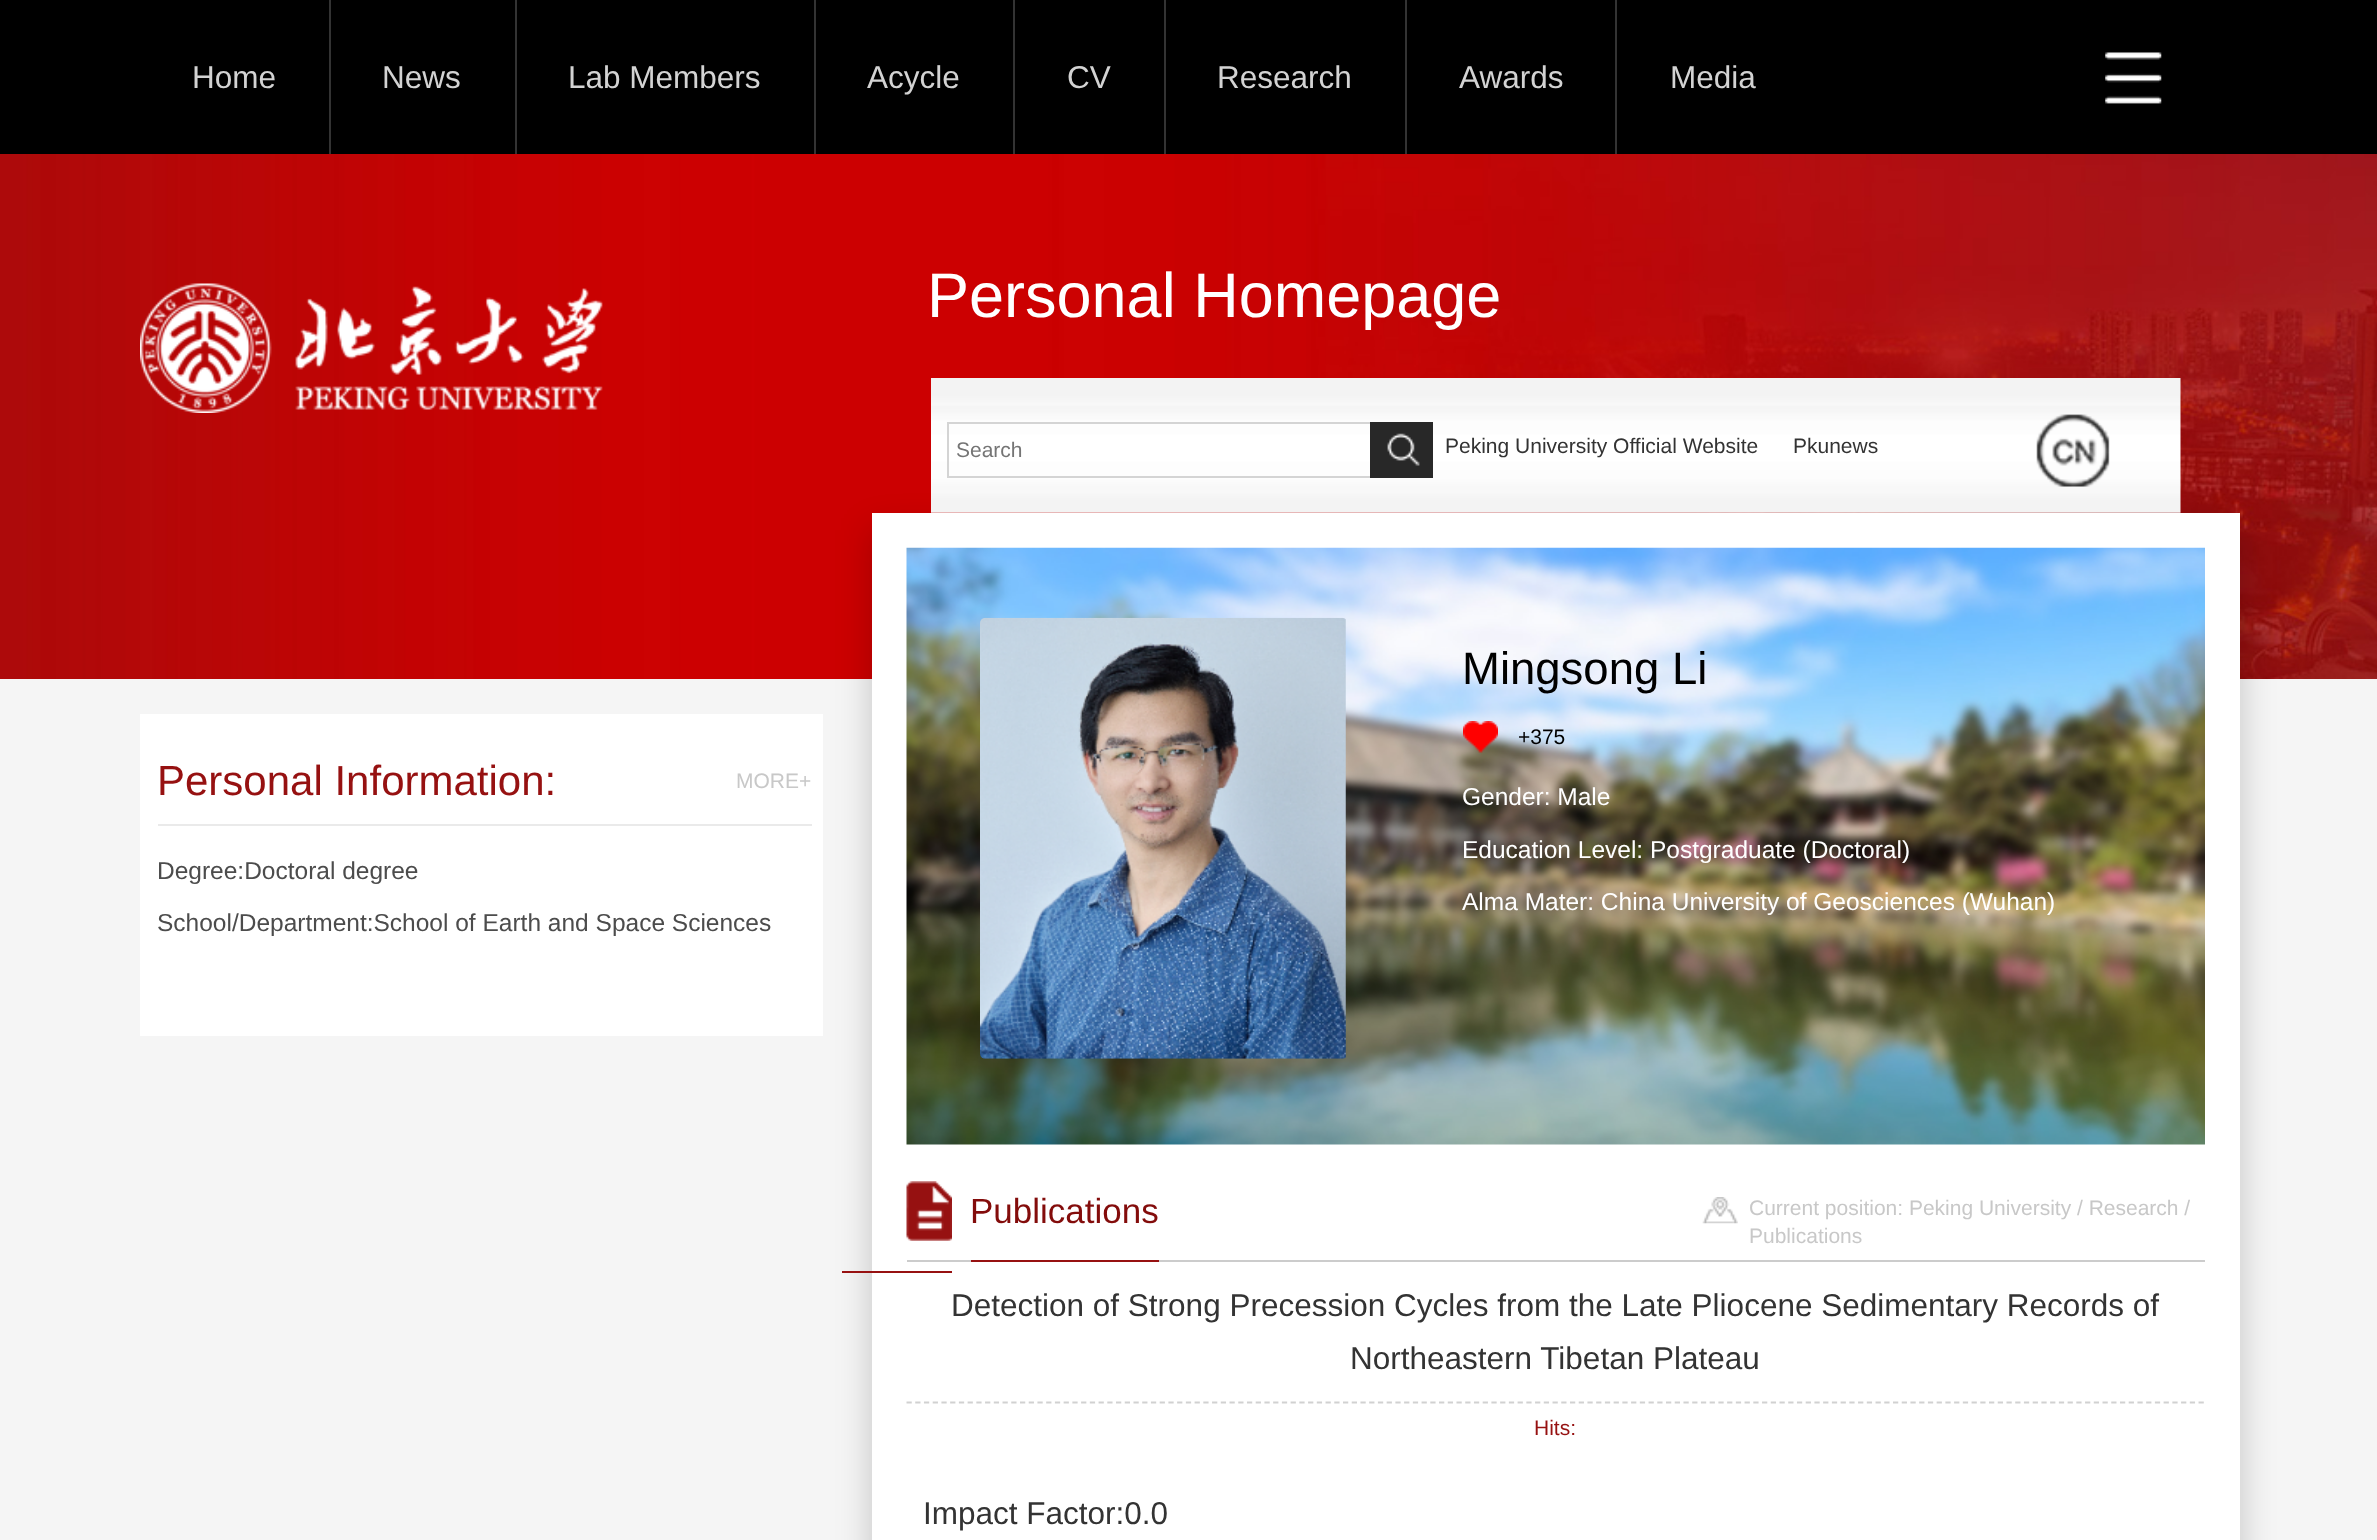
<svg xmlns="http://www.w3.org/2000/svg" width="2377" height="1540">
<style>
.a{font:31.5px Liberation Sans;fill:#d3d3d3}
.b{font:63px Liberation Sans;fill:#fff}
.c{font:42px Liberation Sans;fill:#961111}
.d{font:21px Liberation Sans;fill:#c8c8c8}
.e{font:24.5px Liberation Sans;fill:#4c4c4c}
.f{font:21px Liberation Sans;fill:#757575}
.g{font:21px Liberation Sans;fill:#333}
.h{font:45.5px Liberation Sans;fill:#000}
.i{font:21px Liberation Sans;fill:#000}
.j{font:24.5px Liberation Sans;fill:#fff}
.k{font:35px Liberation Sans;fill:#830c0b}
.l{font:31.5px Liberation Sans;fill:#333}
.m{font:21px Liberation Sans;fill:#961111}
</style>
<rect width="100%" height="100%" fill="#f5f5f5"/>
<path fill="#000" d="M0 0h2377v154H0z"/>
<path fill="#333" d="M329 0h2v154H329z"/>
<path fill="#333" d="M515 0h2v154H515z"/>
<path fill="#333" d="M814 0h2v154H814z"/>
<path fill="#333" d="M1013 0h2v154H1013z"/>
<path fill="#333" d="M1164 0h2v154H1164z"/>
<path fill="#333" d="M1405 0h2v154H1405z"/>
<path fill="#333" d="M1615 0h2v154H1615z"/>
<image href="1.png" x="2105" y="52" width="57" height="52"/>
<image href="2.png" x="0" y="154" width="2377" height="525"/>
<image href="3.png" x="140" y="283" width="463" height="130"/>
<path fill="#fff" d="M140 714h683v322H140z"/>
<path fill="#eaeaea" d="M158 824h654v2H158z"/>
<path fill="#00000033" filter="blur(17.5px)" d="M872 530h1368v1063H872z"/>
<image href="4.png" x="931" y="378" width="1250" height="135"/>
<path fill="none" stroke="#d4d4d4" stroke-width="2" d="M948 423h484v54H948z"/>
<path fill="#282828" d="M1370 422h63v56H1370z"/>
<image href="5.png" x="1387" y="433" width="33" height="33"/>
<image href="6.png" x="2036" y="414" width="74" height="73"/>
<path fill="#fff" d="M872 513h1368v1027H872z"/>
<image href="7.png" x="906" y="547" width="1299" height="598"/>
<image href="8.png" x="980" y="617" width="366" height="442"/>
<image href="9.png" x="1463" y="721" width="35" height="32"/>
<path fill="#ccc" d="M907 1260h1298v2H907z"/>
<path fill="#971111" d="M842 1271h110v2H842z"/>
<path fill="#971111" d="M971 1260h188v2H971z"/>
<image href="10.png" x="906" y="1181" width="46" height="60"/>
<image href="11.png" x="1702" y="1197" width="36" height="27"/>
<path fill="none" stroke="#d1d1d1" stroke-width="1.8" stroke-dasharray="5.25 3.48" d="M906.5 1402.5h1298.5"/>
<text class="a" x="192" y="88">Home</text>
<text class="a" x="382" y="88">News</text>
<text class="a" x="568" y="88">Lab Members</text>
<text class="a" x="867" y="88">Acycle</text>
<text class="a" x="1067" y="88">CV</text>
<text class="a" x="1217" y="88">Research</text>
<text class="a" x="1459" y="88">Awards</text>
<text class="a" x="1670" y="88">Media</text>
<text class="b" x="927" y="317">Personal Homepage</text>
<text class="c" x="157" y="795">Personal Information:</text>
<text class="d" x="736" y="788">MORE+</text>
<text class="e" x="157" y="879">Degree:Doctoral degree</text>
<text class="e" x="157" y="931">School/Department:School of Earth and Space Sciences</text>
<text class="f" x="956" y="457">Search</text>
<text class="g" x="1445" y="453">Peking University Official Website</text>
<text class="g" x="1793" y="453">Pkunews</text>
<text class="h" x="1462" y="684">Mingsong Li</text>
<text class="i" x="1518" y="744">+375</text>
<text class="j" x="1462" y="805">Gender: Male</text>
<text class="j" x="1462" y="858">Education Level: Postgraduate (Doctoral)</text>
<text class="j" x="1462" y="910">Alma Mater: China University of Geosciences (Wuhan)</text>
<text class="k" x="970" y="1223">Publications</text>
<text class="d" x="1749" y="1215">Current position: Peking University / Research /</text>
<text class="d" x="1749" y="1243">Publications</text>
<text class="l" x="951" y="1316">Detection of Strong Precession Cycles from the Late Pliocene Sedimentary Records of</text>
<text class="l" x="1350" y="1369">Northeastern Tibetan Plateau</text>
<text class="m" x="1534" y="1435">Hits:</text>
<text class="l" x="923" y="1524">Impact Factor:0.0</text>
</svg>
